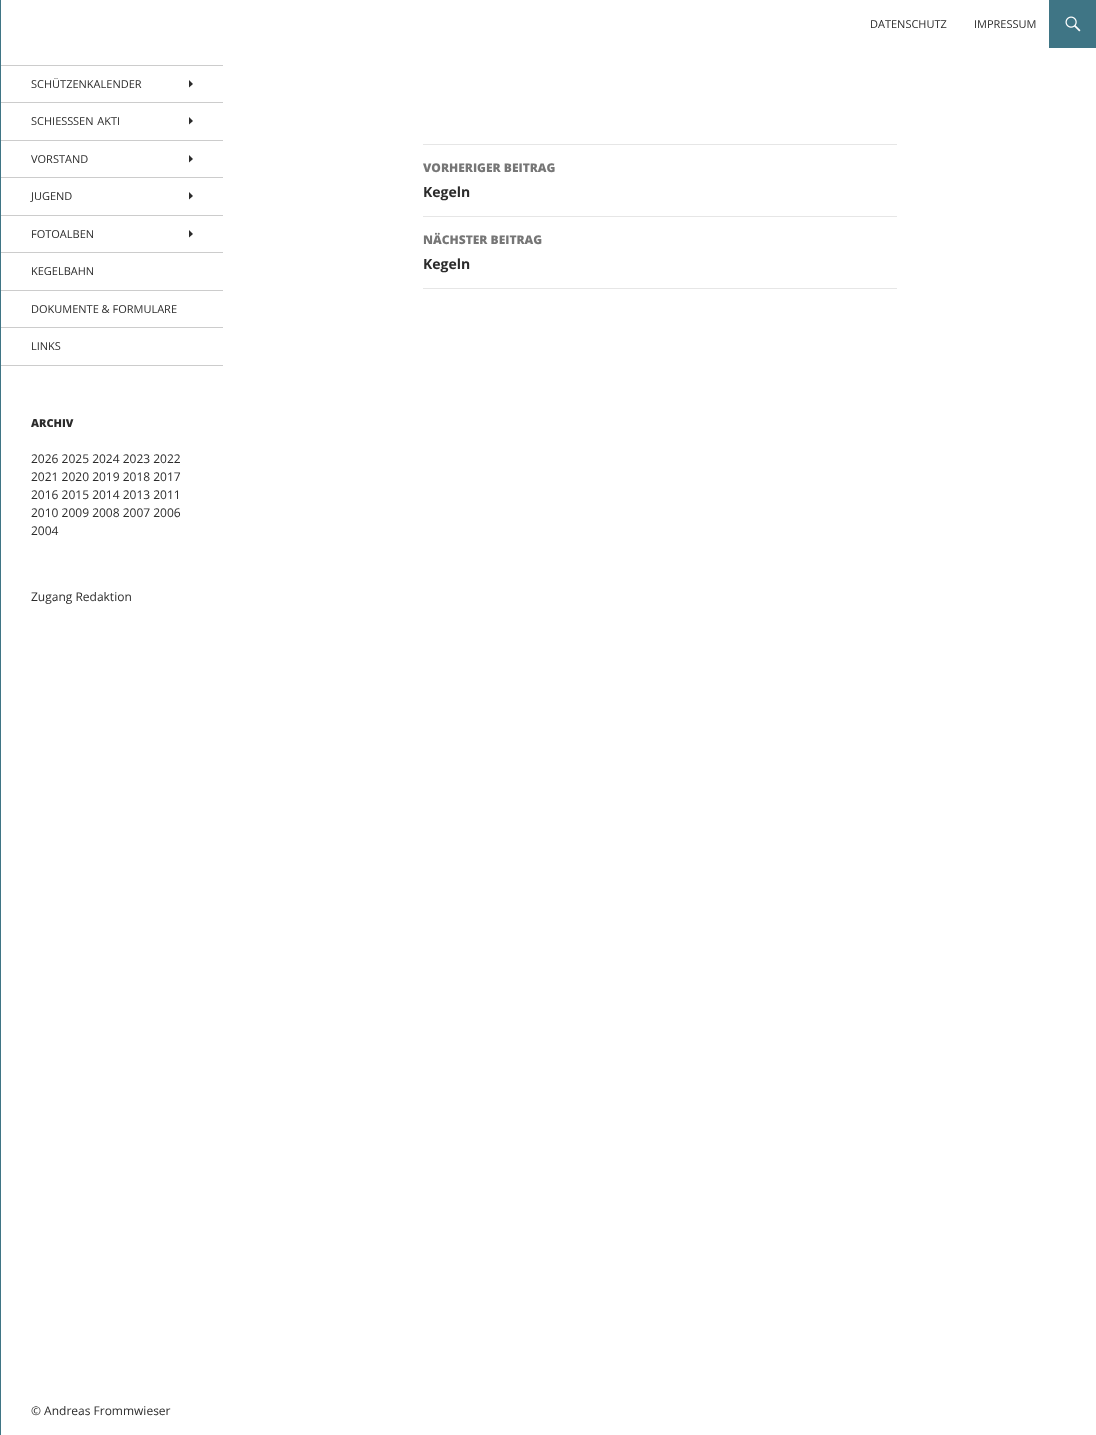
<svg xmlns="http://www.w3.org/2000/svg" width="1096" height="1435">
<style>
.a{font:11px Open Sans;fill:#2b2b2b}
.b{font:800 11px Open Sans;fill:#2b2b2b}
.c{font:12px Open Sans;fill:#2b2b2b}
.d{font:800 12px Open Sans;fill:#767676}
.e{font:bold 14px Open Sans;fill:#2b2b2b}
</style>
<rect width="100%" height="100%" fill="#fff"/>
<path fill="#3f7585" d="M0 0h1v1435H0z"/>
<path fill="#3f7585" d="M1049 0h47v48H1049z"/>
<image href="1.png" x="1065" y="16" width="16" height="16"/>
<path fill="#ccc" d="M1 365h222v1H1z"/>
<path fill="#ccc" d="M1 65h222v1H1z"/>
<path fill="#2b2b2b" d="M189 87.5l4-3.5l-4-4z"/>
<path fill="#ccc" d="M1 102h222v1H1z"/>
<path fill="#2b2b2b" d="M189 124.5l4-3.5l-4-4z"/>
<path fill="#ccc" d="M1 140h222v1H1z"/>
<path fill="#2b2b2b" d="M189 162.5l4-3.5l-4-4z"/>
<path fill="#ccc" d="M1 177h222v1H1z"/>
<path fill="#2b2b2b" d="M189 199.5l4-3.5l-4-4z"/>
<path fill="#ccc" d="M1 215h222v1H1z"/>
<path fill="#2b2b2b" d="M189 237.5l4-3.5l-4-4z"/>
<path fill="#ccc" d="M1 252h222v1H1z"/>
<path fill="#ccc" d="M1 290h222v1H1z"/>
<path fill="#ccc" d="M1 327h222v1H1z"/>
<path fill="#e6e6e6" d="M423 144h474v1H423z"/>
<path fill="#e6e6e6" d="M423 216h474v1H423z"/>
<path fill="#e6e6e6" d="M423 288h474v1H423z"/>
<text class="a" x="870" y="28">DATENSCHUTZ</text>
<text class="a" x="974" y="28">IMPRESSUM</text>
<text class="a" x="31" y="88">SCHÜTZENKALENDER</text>
<text class="a" x="31" y="125">SCHIESS</text>
<text class="a" x="73" y="125" word-spacing="1">SEN AKTI</text>
<text class="a" x="31" y="163">VORSTAND</text>
<text class="a" x="31" y="200">JUGEND</text>
<text class="a" x="31" y="238">FOTOALBEN</text>
<text class="a" x="31" y="275">KEGELBAHN</text>
<text class="a" x="31" y="313">DOKUMENTE &amp; FORMULARE</text>
<text class="a" x="31" y="350">LINKS</text>
<text class="b" x="31" y="427">ARCHIV</text>
<text class="c" x="31" y="463">2026 2025 2024 2023 2022</text>
<text class="c" x="31" y="481">2021 2020 2019 2018 2017</text>
<text class="c" x="31" y="499">2016 2015 2014 2013 2011</text>
<text class="c" x="31" y="517">2010 2009 2008 2007 2006</text>
<text class="c" x="31" y="535">2004</text>
<text class="c" x="31" y="601">Zugang Redaktion</text>
<text class="d" x="423" y="172">VORHERIGER BEITRAG</text>
<text class="e" x="423" y="197">Kegeln</text>
<text class="d" x="423" y="244">NÄCHSTER BEITRAG</text>
<text class="e" x="423" y="269">Kegeln</text>
<text class="c" x="31" y="1415">© Andreas Frommwieser</text>
</svg>
